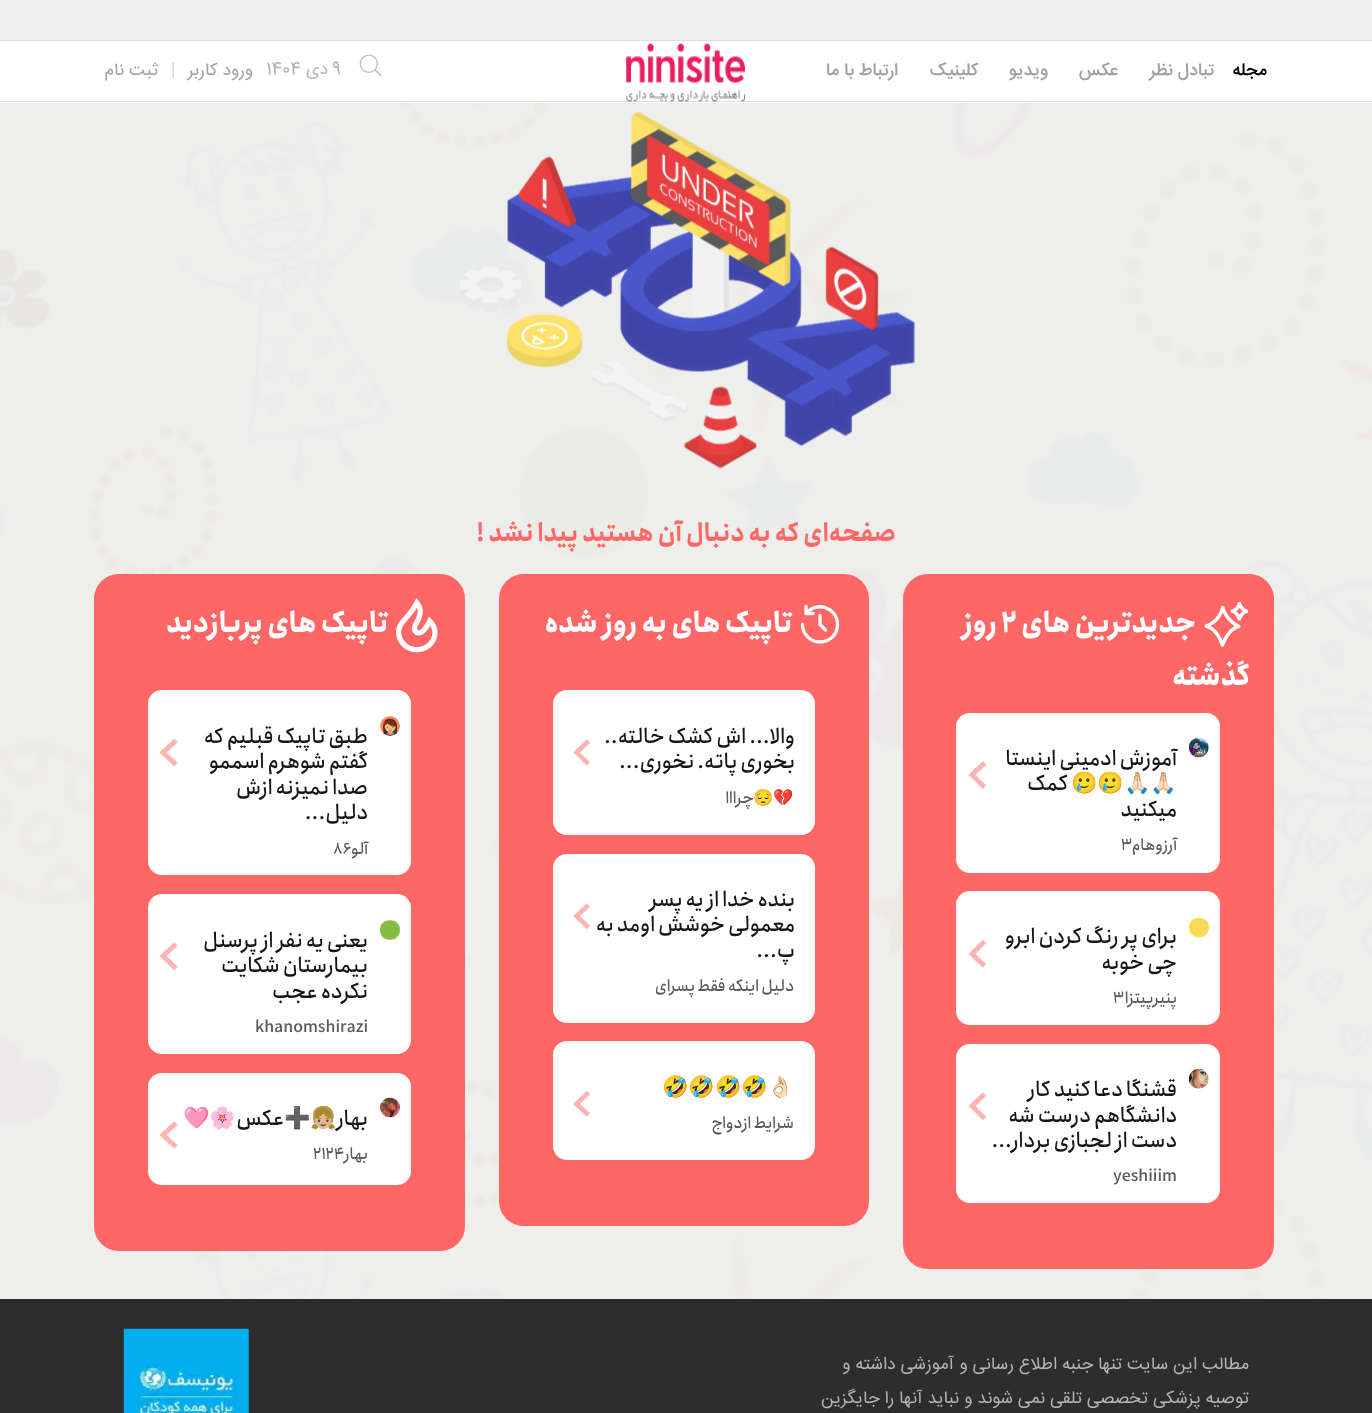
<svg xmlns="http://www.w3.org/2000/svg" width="1372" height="1413">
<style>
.a{font:500 17.5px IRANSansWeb;direction:rtl;fill:#000}
.b{font:500 17.5px IRANSansWeb;direction:rtl;fill:#a0a0a0}
.c{font:17.5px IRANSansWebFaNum;fill:#b4b4b4}
.d{font:17.5px IRANSansWebFaNum;direction:rtl;fill:#b4b4b4}
.e{font:17.5px IRANSansWebFaNum;direction:rtl;fill:#a0a0a0}
.f{font:17.5px IRANSansWebFaNum;fill:#dadada}
.g{font:bold 25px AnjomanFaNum;direction:rtl;fill:#f66}
.h{font:bold 25px AnjomanFaNum;fill:#f66}
.i{font:800 27.5px AnjomanFaNum;direction:rtl;fill:#fff}
.j{font:800 27.5px AnjomanFaNum;fill:#fff}
.k{font:500 21.25px AnjomanFaNum;direction:rtl;fill:#151515}
.l{font:21.25px Noto Color Emoji;direction:rtl;fill:#151515}
.m{font:500 16.25px AnjomanFaNum;direction:rtl;fill:#5b5b5b}
.n{font:500 16.25px AnjomanFaNum;fill:#5b5b5b}
.o{font:16.25px Noto Color Emoji;direction:rtl;fill:#5b5b5b}
.p{font:21.25px Noto Color Emoji;fill:#151515}
</style>
<rect width="100%" height="100%" fill="#eee"/>
<path fill="#fff" d="M0 41h1372v62H0z"/>
<path fill="#ddd" d="M0 40h1372v1H0z"/>
<path fill="#ddd" d="M0 101h1372v1H0z"/>
<image href="1.png" x="626" y="43" width="119" height="59"/>
<image href="2.png" x="359" y="54" width="23" height="23"/>
<image href="3.png" x="0" y="103" width="1372" height="1196"/>
<image href="4.png" x="459" y="111" width="456" height="358"/>
<rect fill="#f66" stroke="#f66" stroke-width="4" x="905" y="576" width="367" height="691" rx="23"/>
<image href="5.png" x="1204" y="602" width="44" height="45"/>
<rect fill="#fff" x="956" y="713" width="264" height="160" rx="14"/>
<image href="6.png" x="1188" y="737" width="21" height="21"/>
<path fill="none" stroke="#ffb3b3" stroke-width="5" d="M984.5 763l-12.5 12l12.5 12"/>
<rect fill="#fff" x="956" y="891" width="264" height="134" rx="14"/>
<path fill="#f9da56" d="M1209 927.5c0 13-20 13-20 0c0-13 20-13 20 0z"/>
<path fill="none" stroke="#ffb3b3" stroke-width="5" d="M984.5 941.5l-12.5 12.5l12.5 12"/>
<rect fill="#fff" x="956" y="1044" width="264" height="159" rx="14"/>
<image href="7.png" x="1188" y="1068" width="21" height="21"/>
<path fill="none" stroke="#ffb3b3" stroke-width="5" d="M984.5 1094l-12.5 12l12.5 12.5"/>
<rect fill="#f66" stroke="#f66" stroke-width="4" x="501" y="576" width="366" height="648" rx="23"/>
<path fill="none" stroke="#fff" stroke-width="3.3" stroke-linecap="round" stroke-linejoin="round" d="M802.5 624.5c0 9.5 8 17.5 17.5 17.5c4.5 0 9-2 12.5-5c3.5-3.5 5-8 5-12.5c0-17-21-24-31.5-11m14 2v9l5.5 5.5m-19.5-23.5v7h7"/>
<rect fill="#fff" x="553" y="690" width="262" height="145" rx="14"/>
<path fill="none" stroke="#ffb3b3" stroke-width="4.6" d="M588.5 741l-12 11.5l12 11.5"/>
<rect fill="#fff" x="553" y="854" width="262" height="169" rx="14"/>
<path fill="none" stroke="#ffb3b3" stroke-width="4.6" d="M588.5 905l-12 11l12 11.5"/>
<rect fill="#fff" x="553" y="1041" width="262" height="119" rx="14"/>
<path fill="none" stroke="#ffb3b3" stroke-width="4.6" d="M588.5 1092.5l-12 11.5l12 11"/>
<rect fill="#f66" stroke="#f66" stroke-width="4" x="96" y="576" width="367" height="673" rx="23"/>
<image href="8.png" x="396" y="598" width="42" height="55"/>
<rect fill="#fff" x="148" y="690" width="263" height="185" rx="14"/>
<image href="9.png" x="380" y="716" width="20" height="21"/>
<path fill="none" stroke="#ffb3b3" stroke-width="5" d="M176 740.5l-13 12l13 12"/>
<rect fill="#fff" x="148" y="894" width="263" height="160" rx="14"/>
<path fill="#85bd41" d="M400 930c0 13-20 13-20 0c0-13 20-13 20 0z"/>
<path fill="none" stroke="#ffb3b3" stroke-width="5" d="M176 944l-13 12l13 12.5"/>
<rect fill="#fff" x="148" y="1073" width="263" height="112" rx="14"/>
<image href="10.png" x="380" y="1097" width="20" height="21"/>
<path fill="none" stroke="#ffb3b3" stroke-width="5" d="M176 1123l-13 12l13 12"/>
<path fill="#2d2d2d" d="M0 1299h1372v114H0z"/>
<image href="11.png" x="123" y="1328" width="126" height="85"/>
<text class="a" x="1267" y="75">مجله</text>
<text class="b" x="1214" y="75">تبادل نظر</text>
<text class="b" x="1118" y="75">عکس</text>
<text class="b" x="1048" y="75">ویدیو</text>
<text class="b" x="978" y="75">کلینیک</text>
<text class="b" x="898" y="75">ارتباط با ما</text>
<text class="c" x="332" y="74">9</text>
<text class="d" x="328" y="74">دی</text>
<text class="c" x="266" y="74">1404</text>
<text class="e" x="253" y="75">ورود کاربر</text>
<text class="f" x="171" y="75">|</text>
<text class="e" x="158" y="75">ثبت نام</text>
<text class="g" x="896" y="541">صفحه‌ای که به دنبال آن هستید پیدا نشد</text>
<text class="h" x="476" y="541">!</text>
<text class="i" x="1196" y="632">جدیدترین های</text>
<text class="j" x="1001" y="632">2</text>
<text class="i" x="997" y="632">روز</text>
<text class="i" x="1250" y="685">گذشته</text>
<text class="k" x="1177" y="765">آموزش ادمینی اینستا</text>
<text class="l" x="1177" y="790">🙏🏻🙏🏻🥲🥲</text>
<text class="k" x="1068" y="790">کمک</text>
<text class="k" x="1177" y="816">میکنید</text>
<text class="m" x="1177" y="850">آرزوهام</text>
<text class="n" x="1121" y="850">3</text>
<text class="k" x="1177" y="943">برای پر رنگ کردن ابرو</text>
<text class="k" x="1177" y="969">چی خوبه</text>
<text class="m" x="1177" y="1003">پنیرپیتزا</text>
<text class="n" x="1113" y="1003">3</text>
<text class="k" x="1177" y="1096">قشنگا دعا کنید کار</text>
<text class="k" x="1177" y="1122">دانشگاهم درست شه</text>
<text class="k" x="1177" y="1147">دست از لجبازی بردار...</text>
<text class="n" x="1113" y="1181">yeshiiim</text>
<text class="i" x="792" y="632">تاپیک های به روز شده</text>
<text class="k" x="795" y="743">والا... اش کشک خالته..</text>
<text class="k" x="795" y="768">بخوری پاته. نخوری...</text>
<text class="o" x="794" y="803">💔😔</text>
<text class="m" x="754" y="803">چرااا</text>
<text class="k" x="795" y="906">بنده خدا از یه پسر</text>
<text class="k" x="795" y="931">معمولی خوشش اومد به</text>
<text class="k" x="795" y="957">پ...</text>
<text class="m" x="794" y="991">دلیل اینکه فقط پسرای</text>
<text class="p" x="662" y="1094">🤣🤣🤣🤣👌🏻</text>
<text class="m" x="794" y="1128">شرایط ازدواج</text>
<text class="i" x="388" y="632">تاپیک های پربازدید</text>
<text class="k" x="368" y="743">طبق تاپیک قبلیم که</text>
<text class="k" x="368" y="768">گفتم شوهرم اسممو</text>
<text class="k" x="368" y="794">صدا نمیزنه ازش</text>
<text class="k" x="368" y="819">دلیل...</text>
<text class="m" x="368" y="854">آلو</text>
<text class="n" x="333" y="854">86</text>
<text class="k" x="368" y="947">یعنی یه نفر از پرسنل</text>
<text class="k" x="368" y="972">بیمارستان شکایت</text>
<text class="k" x="368" y="998">نکرده عجب</text>
<text class="n" x="255" y="1032">khanomshirazi</text>
<text class="l" x="337" y="1125">👧🏼➕️</text>
<text class="k" x="368" y="1125">بهار</text>
<text class="k" x="284" y="1125">عکس</text>
<text class="l" x="236" y="1125">🌸🩷</text>
<text class="n" x="313" y="1159">2124</text>
<text class="m" x="368" y="1159">بهار</text>
<text class="d" x="1249" y="1369">مطالب این سایت تنها جنبه اطلاع رسانی و</text>
<text class="d" x="954" y="1369">آموزشی داشته و</text>
<text class="d" x="1249" y="1403">توصیه پزشکی تخصصی تلقی نمی شوند و نباید آنها را جایگزین</text>
</svg>
